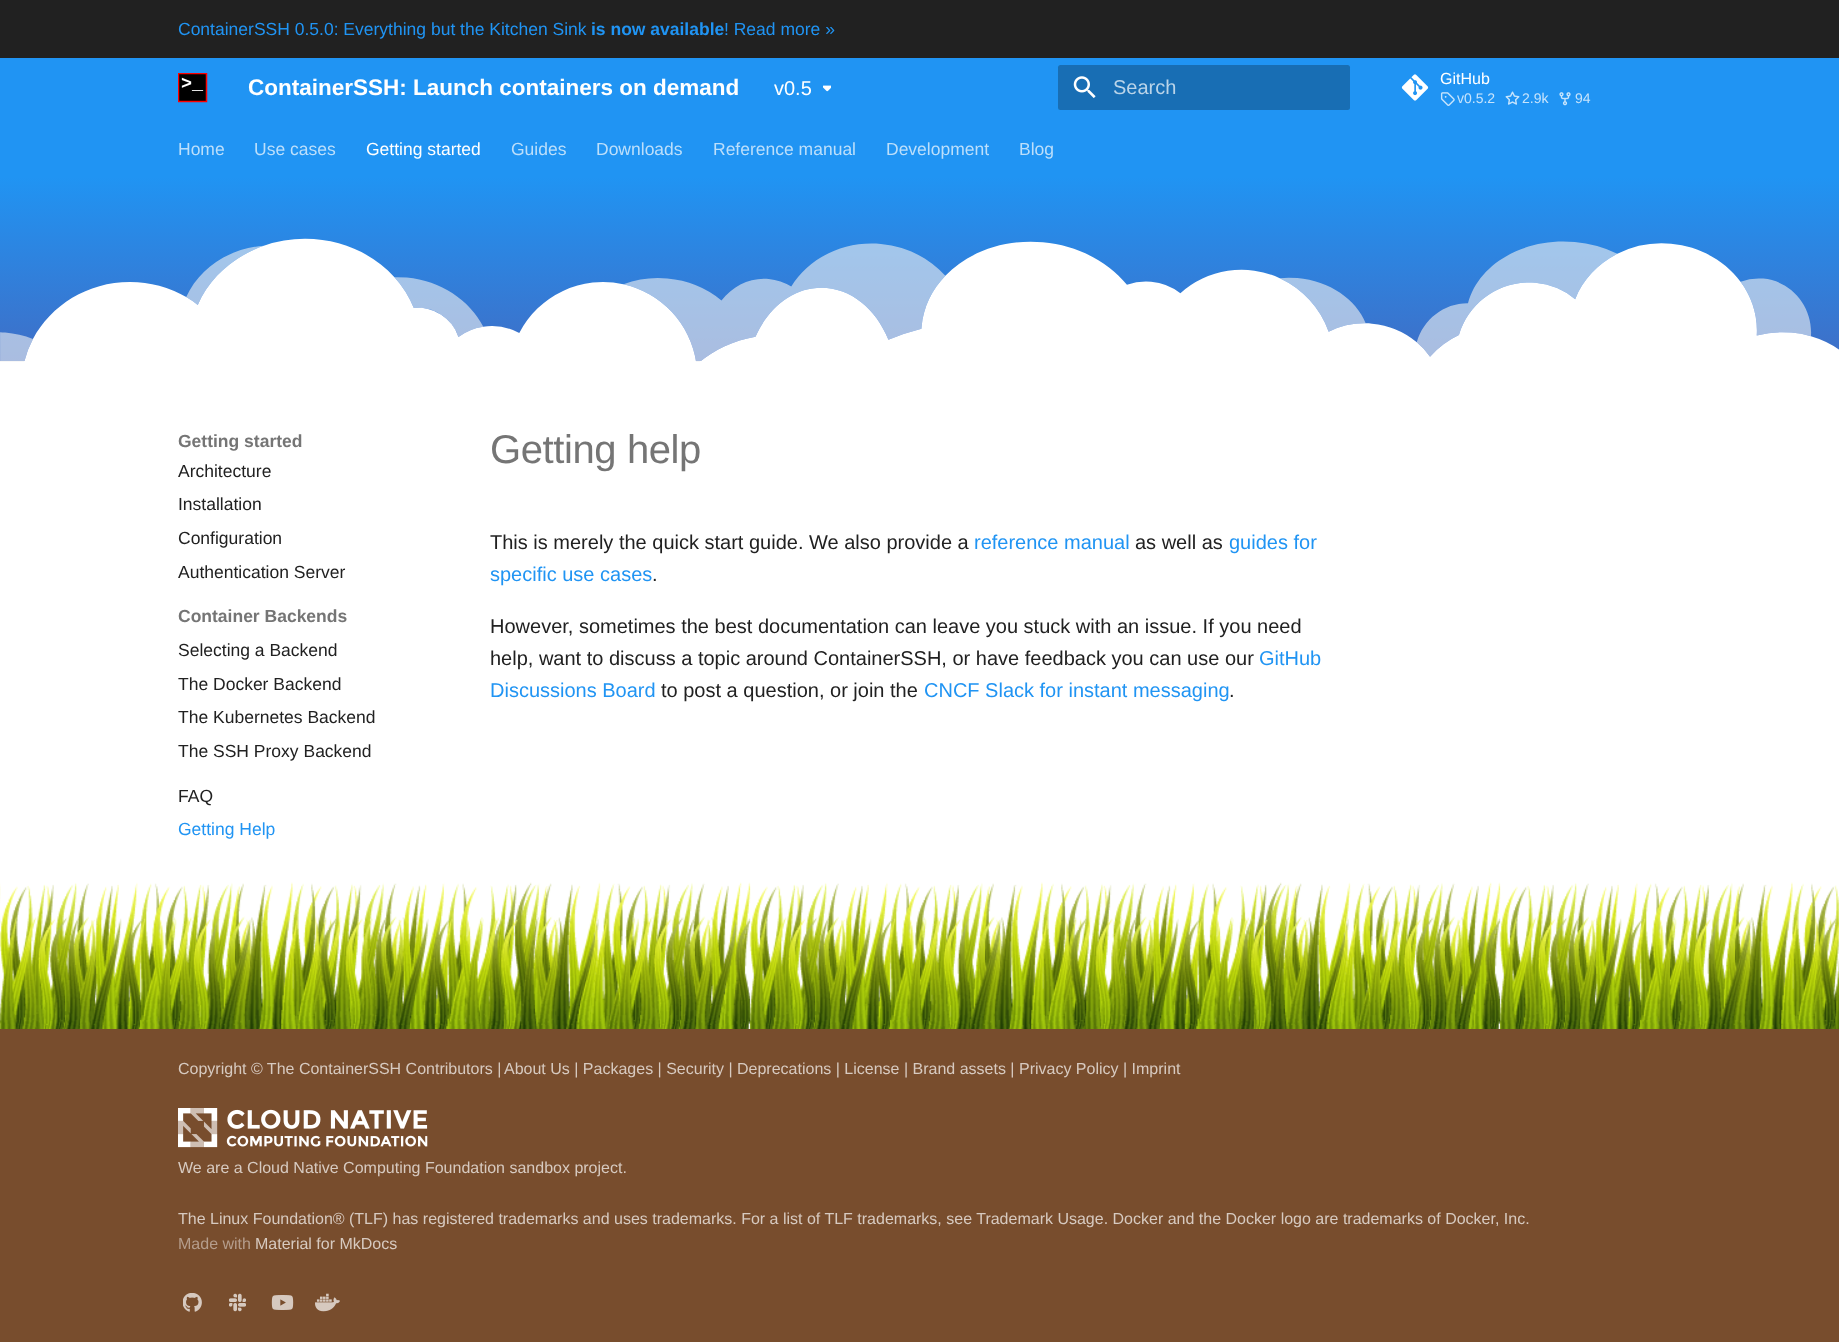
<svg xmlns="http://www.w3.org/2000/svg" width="1839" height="1342">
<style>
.a{font:17.5px Liberation Sans;fill:#2094f3}
.b{font:bold 17.5px Liberation Sans;fill:#2094f3}
.c{font:bold 22.5px Liberation Sans;fill:#fff}
.d{font:20px Liberation Sans;fill:#fff}
.e{font:20px Liberation Sans;fill:#bad4e9}
.f{font:16px Liberation Sans;fill:#fff}
.g{font:14px Liberation Sans;fill:#c7e4fc}
.h{font:17.5px Liberation Sans;fill:#bcdffb}
.i{font:17.5px Liberation Sans;fill:#fff}
.j{font:bold 17.5px Liberation Sans;fill:#757575}
.k{font:17.5px Liberation Sans;fill:#212121}
.l{font:40px Liberation Sans;letter-spacing:-0.4px;fill:#757575}
.m{font:20px Liberation Sans;fill:#212121}
.n{font:20px Liberation Sans;fill:#2094f3}
.o{font:16px Liberation Sans;fill:#d7cac0}
.p{font:16px Liberation Sans;fill:#b59d8c}
</style>
<defs>
<linearGradient id="g1" gradientUnits="userSpaceOnUse" x1="920" y1="177" x2="920" y2="363"><stop offset="0" stop-color="#2094f3"/><stop offset="0.99" stop-color="#3f6ec6"/><stop offset="0.99" stop-color="#fff"/></linearGradient>
<clipPath id="clip1"><path d="M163 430h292v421H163z"/></clipPath>
</defs>
<rect width="100%" height="100%" fill="#fff"/>
<path fill="#212121" d="M0 0h1839v58H0z"/>
<path fill="#2094f3" d="M0 58h1839v120H0z"/>
<image href="1.png" x="178" y="73" width="30" height="30"/>
<image href="2.png" x="823" y="85" width="8" height="7"/>
<rect fill="#186eb4" x="1058" y="65" width="292" height="45" rx="2.5"/>
<image href="3.png" x="1073" y="76" width="23" height="22"/>
<image href="4.png" x="1401" y="74" width="28" height="27"/>
<image href="5.png" x="1440" y="92" width="15" height="14"/>
<image href="6.png" x="1505" y="91" width="15" height="14"/>
<image href="7.png" x="1559" y="92" width="12" height="14"/>
<path fill="url(#g1)" d="M0 178h1839v183H0z"/>
<image href="8.png" x="0" y="238" width="1839" height="124"/>
<g clip-path="url(#clip1)">
<path fill="#fff" filter="blur(5px)" d="M168 420h282v43H168z"/>
</g>
<image href="9.png" x="0" y="882" width="1839" height="147"/>
<path fill="#784d2d" d="M0 1029h1839v313H0z"/>
<image href="10.png" x="178" y="1108" width="250" height="40"/>
<image href="11.png" x="183" y="1293" width="19" height="19"/>
<image href="12.png" x="229" y="1293" width="17" height="19"/>
<image href="13.png" x="271" y="1295" width="23" height="15"/>
<image href="14.png" x="315" y="1293" width="25" height="19"/>
<text class="a" x="178" y="35">ContainerSSH 0.5.0: Everything but the Kitchen Sink</text>
<text class="b" x="591" y="35">is now available</text>
<text class="a" x="724" y="35">! Read more »</text>
<text class="c" x="248" y="95">ContainerSSH: Launch containers on demand</text>
<text class="d" x="774" y="95">v0.5</text>
<text class="e" x="1113" y="94">Search</text>
<text class="f" x="1440" y="84">GitHub</text>
<text class="g" x="1457" y="103">v0.5.2</text>
<text class="g" x="1522" y="103">2.9k</text>
<text class="g" x="1575" y="103">94</text>
<text class="h" x="178" y="155">Home</text>
<text class="h" x="254" y="155">Use cases</text>
<text class="i" x="366" y="155">Getting started</text>
<text class="h" x="511" y="155">Guides</text>
<text class="h" x="596" y="155">Downloads</text>
<text class="h" x="713" y="155">Reference manual</text>
<text class="h" x="886" y="155">Development</text>
<text class="h" x="1019" y="155">Blog</text>
<text class="j" x="178" y="447">Getting started</text>
<text class="k" x="178" y="477">Architecture</text>
<text class="k" x="178" y="510">Installation</text>
<text class="k" x="178" y="544">Configuration</text>
<text class="k" x="178" y="578">Authentication Server</text>
<text class="j" x="178" y="622">Container Backends</text>
<text class="k" x="178" y="656">Selecting a Backend</text>
<text class="k" x="178" y="690">The Docker Backend</text>
<text class="k" x="178" y="723">The Kubernetes Backend</text>
<text class="k" x="178" y="757">The SSH Proxy Backend</text>
<text class="k" x="178" y="802">FAQ</text>
<text class="a" x="178" y="835">Getting Help</text>
<text class="l" x="490" y="463">Getting help</text>
<text class="m" x="490" y="549">This is merely the quick start guide. We also provide a</text>
<text class="n" x="974" y="549">reference manual</text>
<text class="m" x="1135" y="549">as well as</text>
<text class="n" x="1229" y="549">guides for</text>
<text class="n" x="490" y="581">specific use cases</text>
<text class="m" x="652" y="581">.</text>
<text class="m" x="490" y="633">However, sometimes the best documentation can leave you stuck with an issue. If you need</text>
<text class="m" x="490" y="665">help, want to discuss a topic around ContainerSSH, or have feedback you can use our</text>
<text class="n" x="1259" y="665">GitHub</text>
<text class="n" x="490" y="697">Discussions Board</text>
<text class="m" x="661" y="697">to post a question, or join the</text>
<text class="n" x="924" y="697">CNCF Slack for instant messaging</text>
<text class="m" x="1229" y="697">.</text>
<text class="o" x="178" y="1074">Copyright © The ContainerSSH Contributors |</text>
<text class="o" x="504" y="1074">About Us | Packages | Security | Deprecations | License | Brand assets | Privacy Policy | Imprint</text>
<text class="o" x="178" y="1173">We are a Cloud Native Computing Foundation sandbox project.</text>
<text class="o" x="178" y="1224">The Linux Foundation® (TLF) has registered trademarks and uses trademarks. For a list of TLF trademarks, see Trademark Usage. Docker and the Docker logo are trademarks of Docker, Inc.</text>
<text class="p" x="178" y="1249">Made with</text>
<text class="o" x="255" y="1249">Material for MkDocs</text>
</svg>
